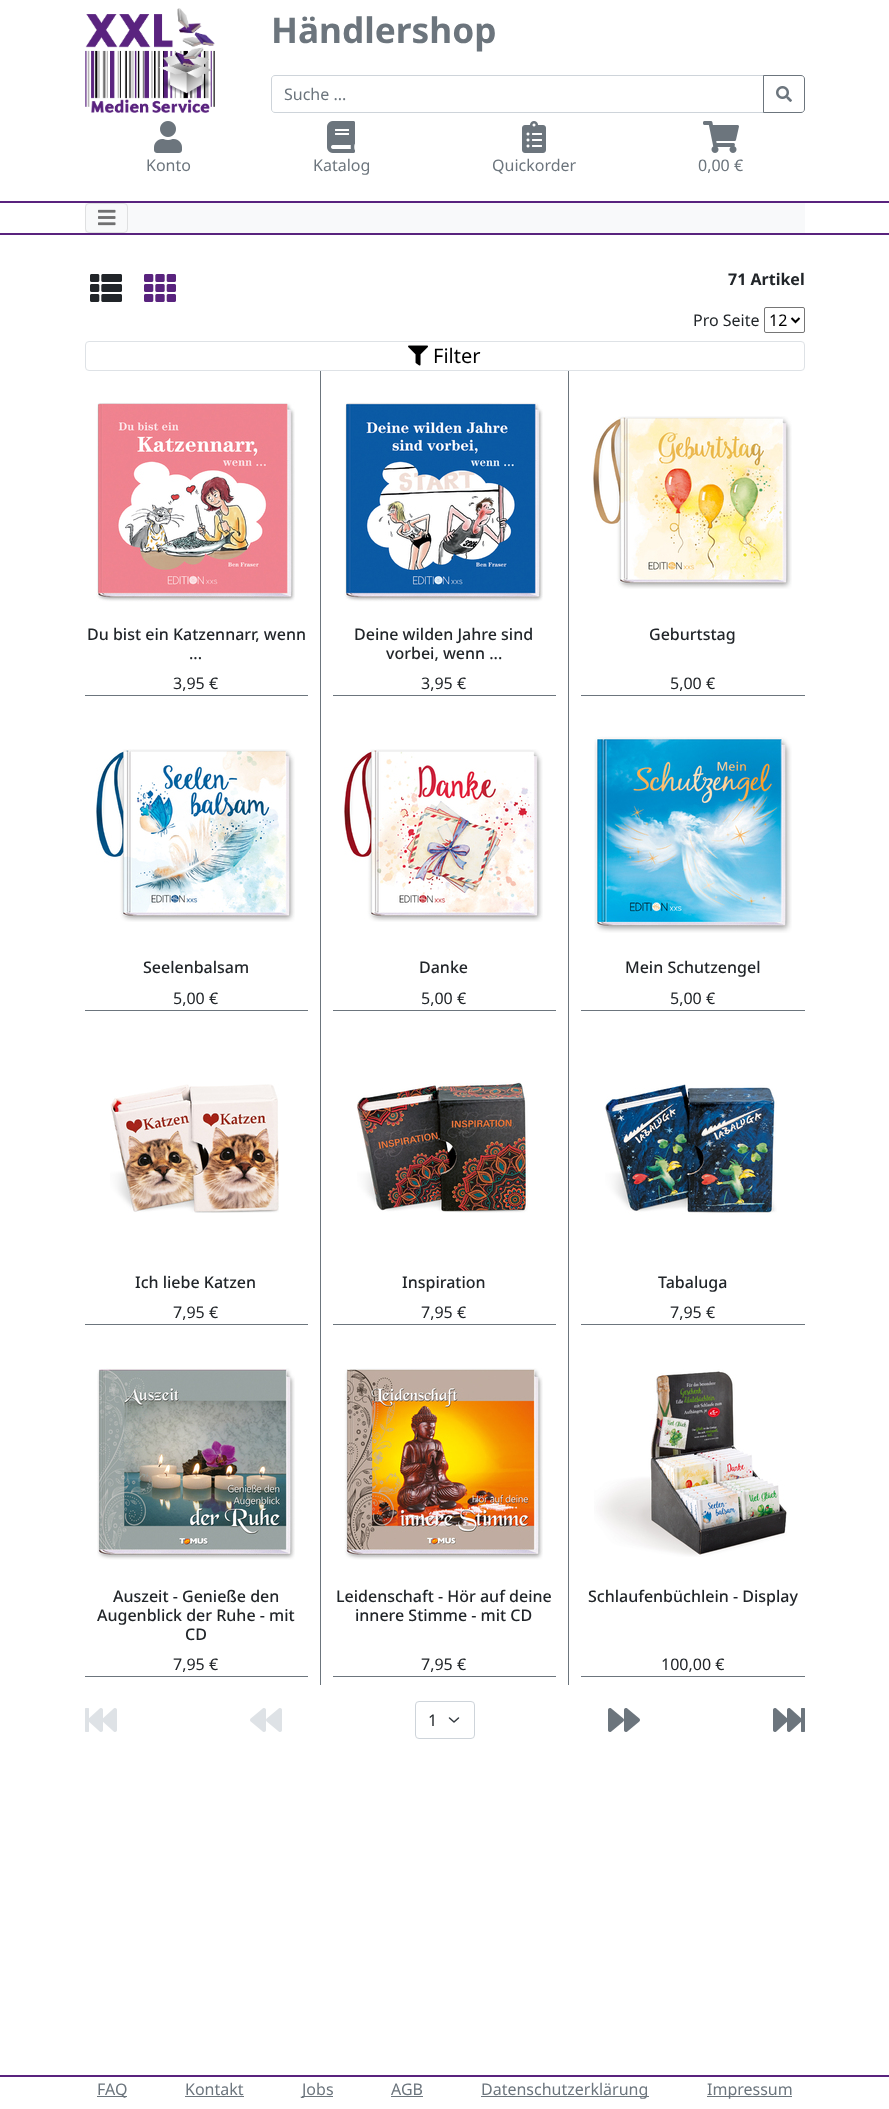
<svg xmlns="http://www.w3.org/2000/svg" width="889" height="2109">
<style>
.a{font:bold 35.25px Noto Sans;fill:#6c757d}
.b{font:16px Noto Sans;fill:#6c757d}
.c{font:bold 16px Noto Sans;fill:#212529}
.d{font:16px Noto Sans;fill:#212529}
.e{font:16px Noto Sans;fill:#000}
.f{font:20px Noto Sans;fill:#000}
.g{font:500 16px Noto Sans;fill:#212529}
</style>
<rect width="100%" height="100%" fill="#fff"/>
<image href="1.png" x="85" y="8" width="130" height="105"/>
<path fill="none" stroke="#ced4da" d="M275 75.5h488.5v37h-488.5c-2 0-3.5-1.5-3.5-3.5v-30c0-2 1.5-3.5 3.5-3.5z"/>
<path fill="none" stroke="#6c757d" d="M763.5 75.5h37.5c2 0 3.5 1.5 3.5 3.5v30c0 2-1.5 3.5-3.5 3.5h-37.5z"/>
<image href="2.png" x="776" y="86" width="16" height="16"/>
<image href="3.png" x="154" y="121" width="28" height="32"/>
<image href="4.png" x="327" y="121" width="28" height="32"/>
<image href="5.png" x="522" y="121" width="24" height="32"/>
<image href="6.png" x="703" y="121" width="36" height="32"/>
<path fill="#59237e" d="M0 201h889v2H0z"/>
<path fill="#f8f9fa" d="M85 203h720v30H85z"/>
<rect fill="none" stroke="#dfe0e1" x="85.5" y="203.5" width="42" height="29" rx="3.5"/>
<image href="7.png" x="98" y="209" width="18" height="17"/>
<path fill="#59237e" d="M0 233h889v2H0z"/>
<image href="8.png" x="90" y="274" width="32" height="28"/>
<image href="9.png" x="144" y="274" width="32" height="28"/>
<rect fill="none" stroke="#767676" x="764.5" y="307.5" width="40" height="25" rx="1.5"/>
<path fill="none" stroke="#000" stroke-width="2" d="M791.5 318l4 4l4-4"/>
<rect fill="none" stroke="#dee2e6" x="85.5" y="341.5" width="719" height="29" rx="3.5"/>
<image href="10.png" x="408" y="345" width="20" height="21"/>
<path fill="#6c757d" d="M320 371h1v1314H320z"/>
<image href="11.png" x="96" y="402" width="199" height="200"/>
<path fill="#6c757d" d="M85 695h223v1H85z"/>
<path fill="#6c757d" d="M568 371h1v1314H568z"/>
<image href="12.png" x="344" y="402" width="199" height="200"/>
<path fill="#6c757d" d="M333 695h223v1H333z"/>
<image href="13.png" x="593" y="416" width="199" height="173"/>
<path fill="#6c757d" d="M581 695h224v1H581z"/>
<image href="14.png" x="96" y="749" width="199" height="173"/>
<path fill="#6c757d" d="M85 1010h223v1H85z"/>
<image href="15.png" x="344" y="749" width="199" height="173"/>
<path fill="#6c757d" d="M333 1010h223v1H333z"/>
<image href="16.png" x="594" y="736" width="198" height="197"/>
<path fill="#6c757d" d="M581 1010h224v1H581z"/>
<image href="17.png" x="110" y="1084" width="169" height="129"/>
<path fill="#6c757d" d="M85 1324h223v1H85z"/>
<image href="18.png" x="357" y="1081" width="171" height="132"/>
<path fill="#6c757d" d="M333 1324h223v1H333z"/>
<image href="19.png" x="605" y="1084" width="172" height="131"/>
<path fill="#6c757d" d="M581 1324h224v1H581z"/>
<image href="20.png" x="97" y="1368" width="198" height="192"/>
<path fill="#6c757d" d="M85 1676h223v1H85z"/>
<image href="21.png" x="344" y="1368" width="199" height="192"/>
<path fill="#6c757d" d="M333 1676h223v1H333z"/>
<image href="22.png" x="594" y="1369" width="193" height="188"/>
<path fill="#6c757d" d="M581 1676h224v1H581z"/>
<image href="23.png" x="85" y="1708" width="32" height="24"/>
<image href="24.png" x="250" y="1708" width="32" height="24"/>
<path fill="none" stroke="#343a40" stroke-width="1.5" stroke-linecap="round" stroke-linejoin="round" d="M449.5 1718l4.5 4l4.5-4"/>
<rect fill="none" stroke="#ced4da" x="415.5" y="1701.5" width="59" height="37" rx="3.5"/>
<image href="25.png" x="608" y="1708" width="32" height="24"/>
<image href="26.png" x="773" y="1708" width="32" height="24"/>
<path fill="#59237e" d="M0 2075h889v2H0z"/>
<path fill="#6c757d" d="M97 2096h30v1H97z"/>
<path fill="#6c757d" d="M185 2096h59v1H185z"/>
<path fill="#6c757d" d="M302 2096h31v1H302z"/>
<path fill="#6c757d" d="M391 2096h32v1H391z"/>
<path fill="#6c757d" d="M481 2096h168v1H481z"/>
<path fill="#6c757d" d="M707 2096h85v1H707z"/>
<text class="a" x="271" y="43">Händlershop</text>
<text class="b" x="284" y="100">Suche ...</text>
<text class="b" x="146" y="171">Konto</text>
<text class="b" x="313" y="171">Katalog</text>
<text class="b" x="492" y="171">Quickorder</text>
<text class="b" x="698" y="171">0,00 €</text>
<text class="c" x="728" y="285">71 Artikel</text>
<text class="d" x="693" y="326">Pro Seite</text>
<text class="e" x="769" y="326">12</text>
<text class="f" x="433" y="363">Filter</text>
<text class="g" x="87" y="640">Du bist ein Katzennarr, wenn</text>
<text class="g" x="189" y="659">...</text>
<text class="d" x="173" y="689">3,95 €</text>
<text class="g" x="354" y="640">Deine wilden Jahre sind</text>
<text class="g" x="386" y="659">vorbei, wenn ...</text>
<text class="d" x="421" y="689">3,95 €</text>
<text class="g" x="649" y="640">Geburtstag</text>
<text class="d" x="670" y="689">5,00 €</text>
<text class="g" x="143" y="973">Seelenbalsam</text>
<text class="d" x="173" y="1004">5,00 €</text>
<text class="g" x="419" y="973">Danke</text>
<text class="d" x="421" y="1004">5,00 €</text>
<text class="g" x="625" y="973">Mein Schutzengel</text>
<text class="d" x="670" y="1004">5,00 €</text>
<text class="g" x="135" y="1288">Ich liebe Katzen</text>
<text class="d" x="173" y="1318">7,95 €</text>
<text class="g" x="402" y="1288">Inspiration</text>
<text class="d" x="421" y="1318">7,95 €</text>
<text class="g" x="658" y="1288">Tabaluga</text>
<text class="d" x="670" y="1318">7,95 €</text>
<text class="g" x="113" y="1602">Auszeit - Genieße den</text>
<text class="g" x="97" y="1621">Augenblick der Ruhe - mit</text>
<text class="g" x="185" y="1640">CD</text>
<text class="d" x="173" y="1670">7,95 €</text>
<text class="g" x="336" y="1602">Leidenschaft - Hör auf deine</text>
<text class="g" x="355" y="1621">innere Stimme - mit CD</text>
<text class="d" x="421" y="1670">7,95 €</text>
<text class="g" x="588" y="1602">Schlaufenbüchlein - Display</text>
<text class="d" x="661" y="1670">100,00 €</text>
<text class="d" x="428" y="1726">1</text>
<text class="b" x="97" y="2095">FAQ</text>
<text class="b" x="185" y="2095">Kontakt</text>
<text class="b" x="302" y="2095">Jobs</text>
<text class="b" x="391" y="2095">AGB</text>
<text class="b" x="481" y="2095">Datenschutzerklärung</text>
<text class="b" x="707" y="2095">Impressum</text>
</svg>
